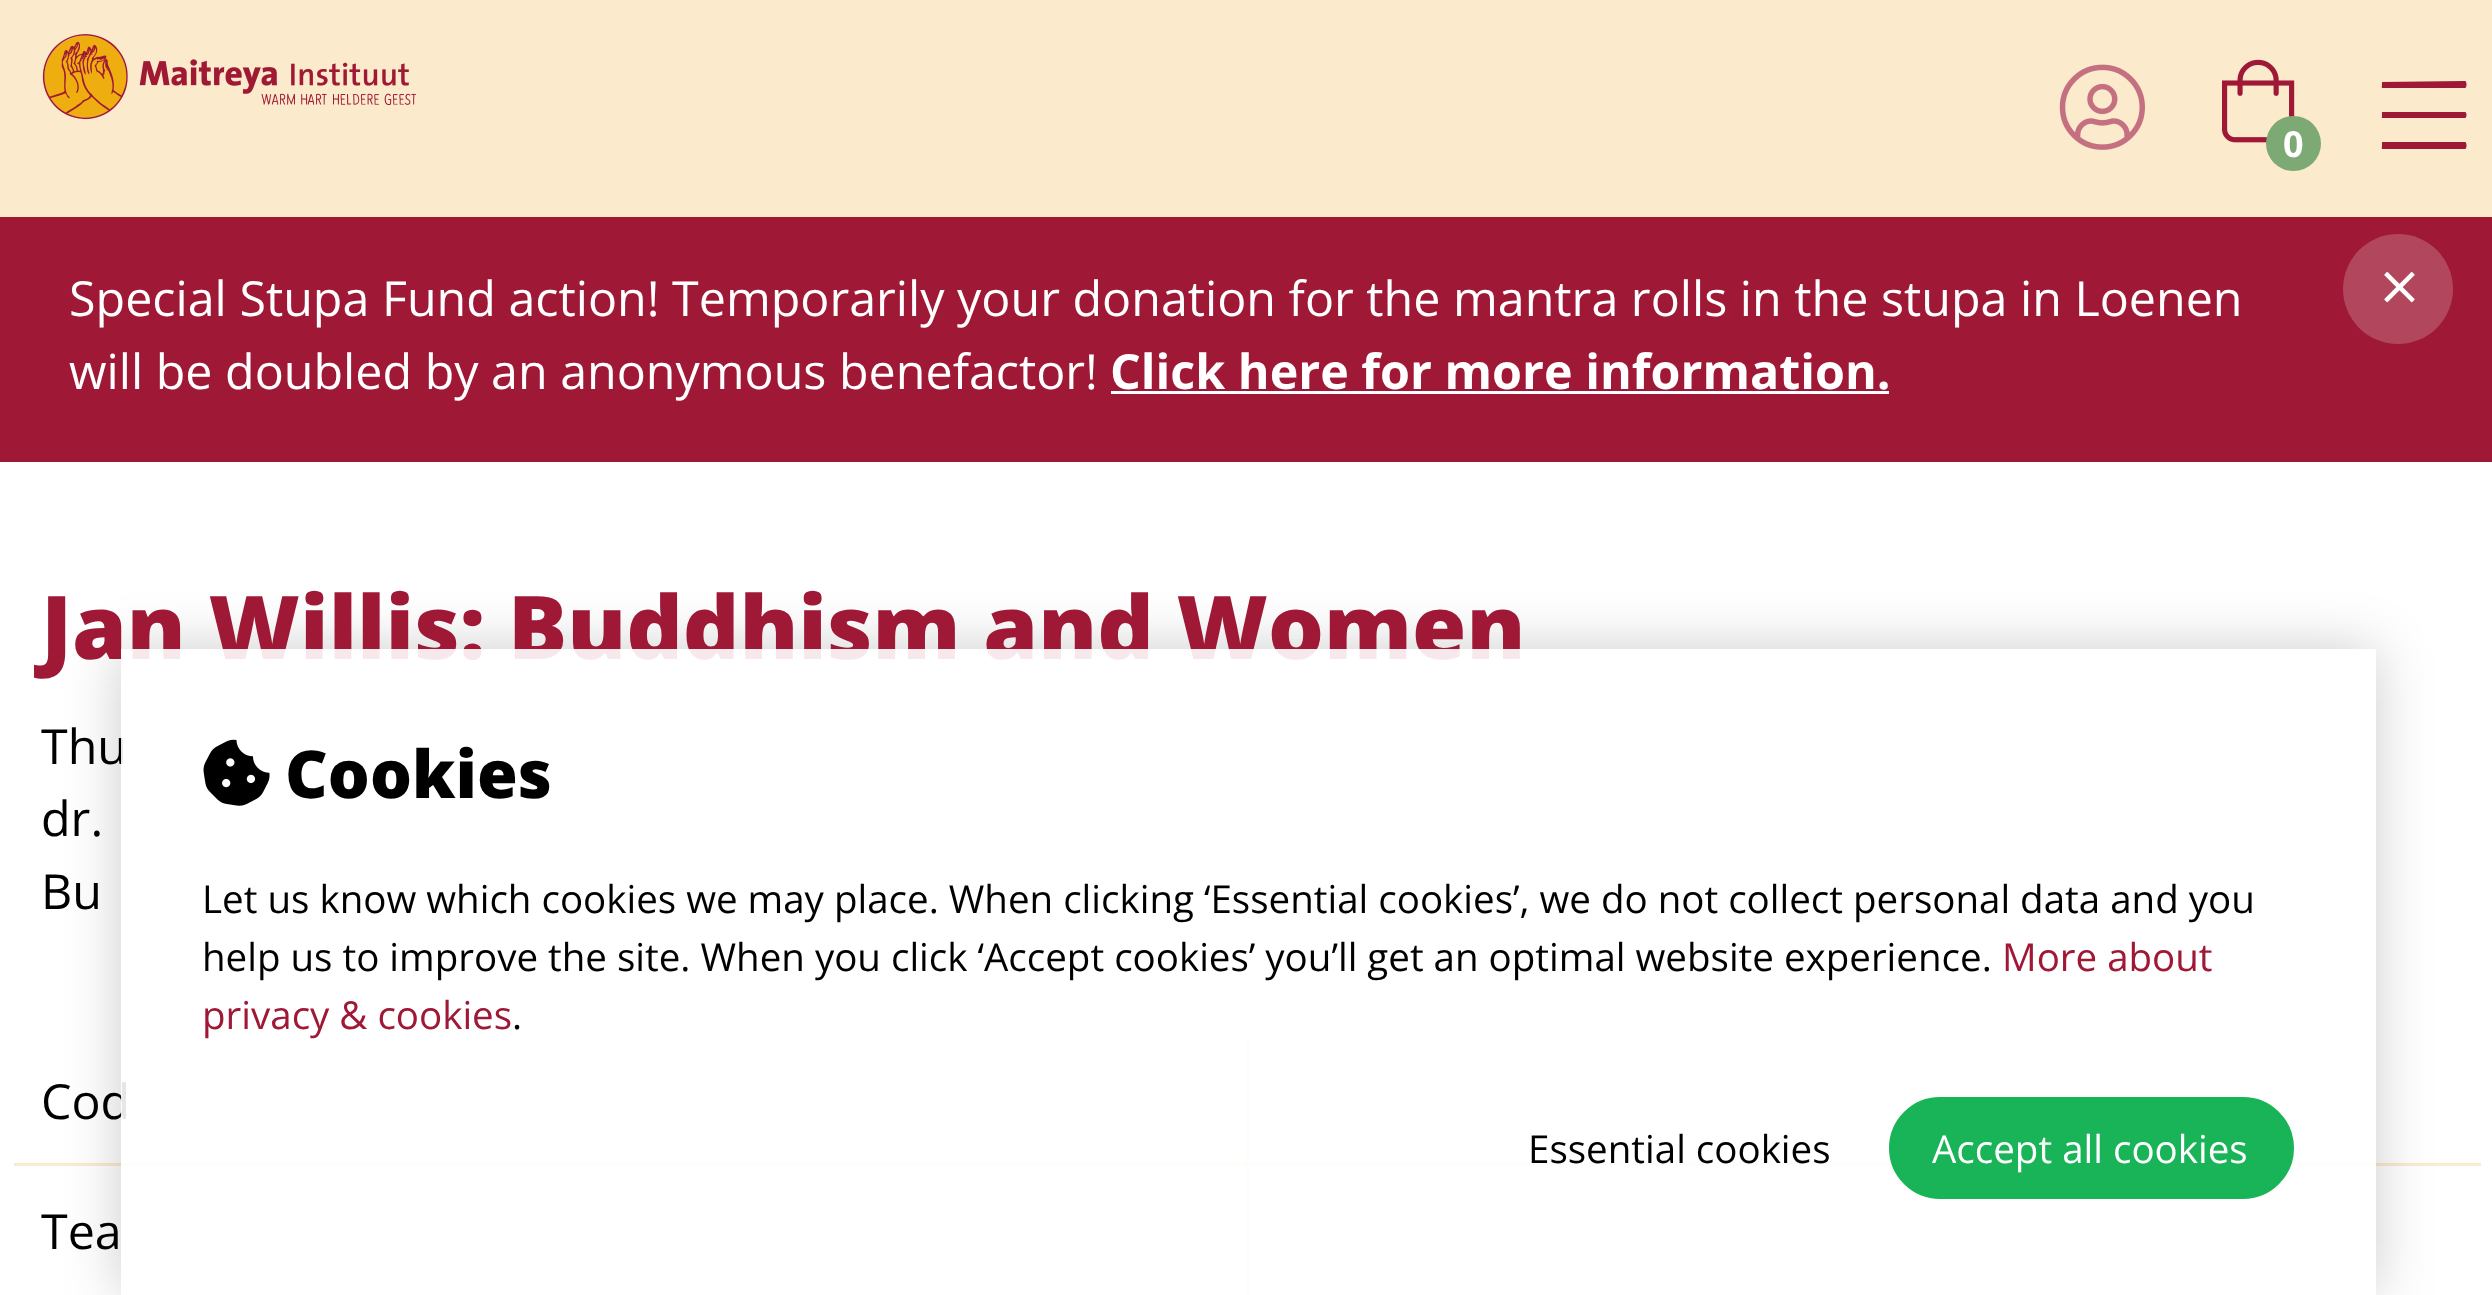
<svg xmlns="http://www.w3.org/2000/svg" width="2492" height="1295">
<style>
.a{font:bold 36px Open Sans;fill:#fff}
.b{font:48.4px Open Sans;fill:#fff}
.c{font:bold 48.4px Open Sans;fill:#fff}
.d{font:800 88px Open Sans;fill:#9f1835}
.e{font:48.4px Open Sans;fill:#000}
.f{font:800 66px Open Sans;fill:#000}
.g{font:38.5px Open Sans;fill:#000}
.h{font:38.5px Open Sans;fill:#9f1835}
.i{font:38.5px Open Sans;fill:#fff}
</style>
<defs>
<clipPath id="clip1"><path d="M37 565h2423v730h-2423zm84 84h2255v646h-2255z" clip-rule="evenodd"/></clipPath>
</defs>
<rect width="100%" height="100%" fill="#fff"/>
<path fill="#fbeacc" d="M0 0h2492v217H0z"/>
<image href="1.png" x="42" y="34" width="375" height="86"/>
<path fill="#9f1835" d="M2465 88h-82c-2 0-1-2-1-3v-3l83-1c2 0 2 7 0 7zm0 30h-82c-2 0-1-1-1-2v-4h83c2 0 2 6 0 6zm0 31h-82c-2 0-1-2-1-3v-4h83c2 0 2 7 0 7z"/>
<image href="2.png" x="2059" y="64" width="86" height="86"/>
<image href="3.png" x="2222" y="59" width="73" height="84"/>
<circle fill="#7da974" cx="2293.5" cy="143.5" r="27.5"/>
<path fill="#9f1835" d="M0 217h2492v245H0z"/>
<path fill="#fff" d="M1111 391h778v3H1111z"/>
<circle fill="#b2465d" cx="2398" cy="289" r="55"/>
<image href="4.png" x="2384" y="272" width="31" height="31"/>
<path fill="#fbeacc" d="M14 1163h2467v3H14z"/>
<path fill="#fbeacc" d="M1246 1037h3v126H1246z"/>
<path fill="#fbeacc" d="M1246 1166h3v129H1246z"/>
<g clip-path="url(#clip1)">
<path fill="#00000033" filter="blur(27.5px)" d="M121 649h2255v646H121z"/>
</g>
<text class="a" x="2283" y="157">0</text>
<text class="b" x="69" y="316">Special Stupa Fund action! Temporarily your donation for the mantra rolls in the stupa in Loenen</text>
<text class="b" x="69" y="389">will be doubled by an anonymous benefactor!</text>
<text class="c" x="1110" y="389">Click here for more information.</text>
<text class="d" x="41" y="659">Jan Willis: Buddhism and Women</text>
<text class="e" x="41" y="764">Thu</text>
<text class="e" x="41" y="836">dr.</text>
<text class="e" x="41" y="909">Bu</text>
<text class="e" x="41" y="1119">Cod</text>
<text class="e" x="41" y="1249">Tea</text>
<path fill="#ffffffe6" d="M121 649h2255v646H121z"/>
<image href="5.png" x="203" y="739" width="67" height="67"/>
<text class="f" x="285" y="798">Cookies</text>
<text class="g" x="202" y="913">Let us know which cookies we may place. When clicking ‘Essential cookies’, we do not collect personal data and you</text>
<text class="g" x="202" y="971">help us to improve the site. When you click ‘Accept cookies’ you’ll get an optimal website experience.</text>
<text class="h" x="2002" y="971">More about</text>
<text class="h" x="202" y="1029">privacy &amp; cookies</text>
<text class="g" x="512" y="1029">.</text>
<text class="g" x="1528" y="1163">Essential cookies</text>
<rect fill="#19b358" stroke="#19b358" stroke-width="3" x="1890.5" y="1098.5" width="402" height="99" rx="49.5"/>
<text class="i" x="1932" y="1163">Accept all cookies</text>
</svg>
